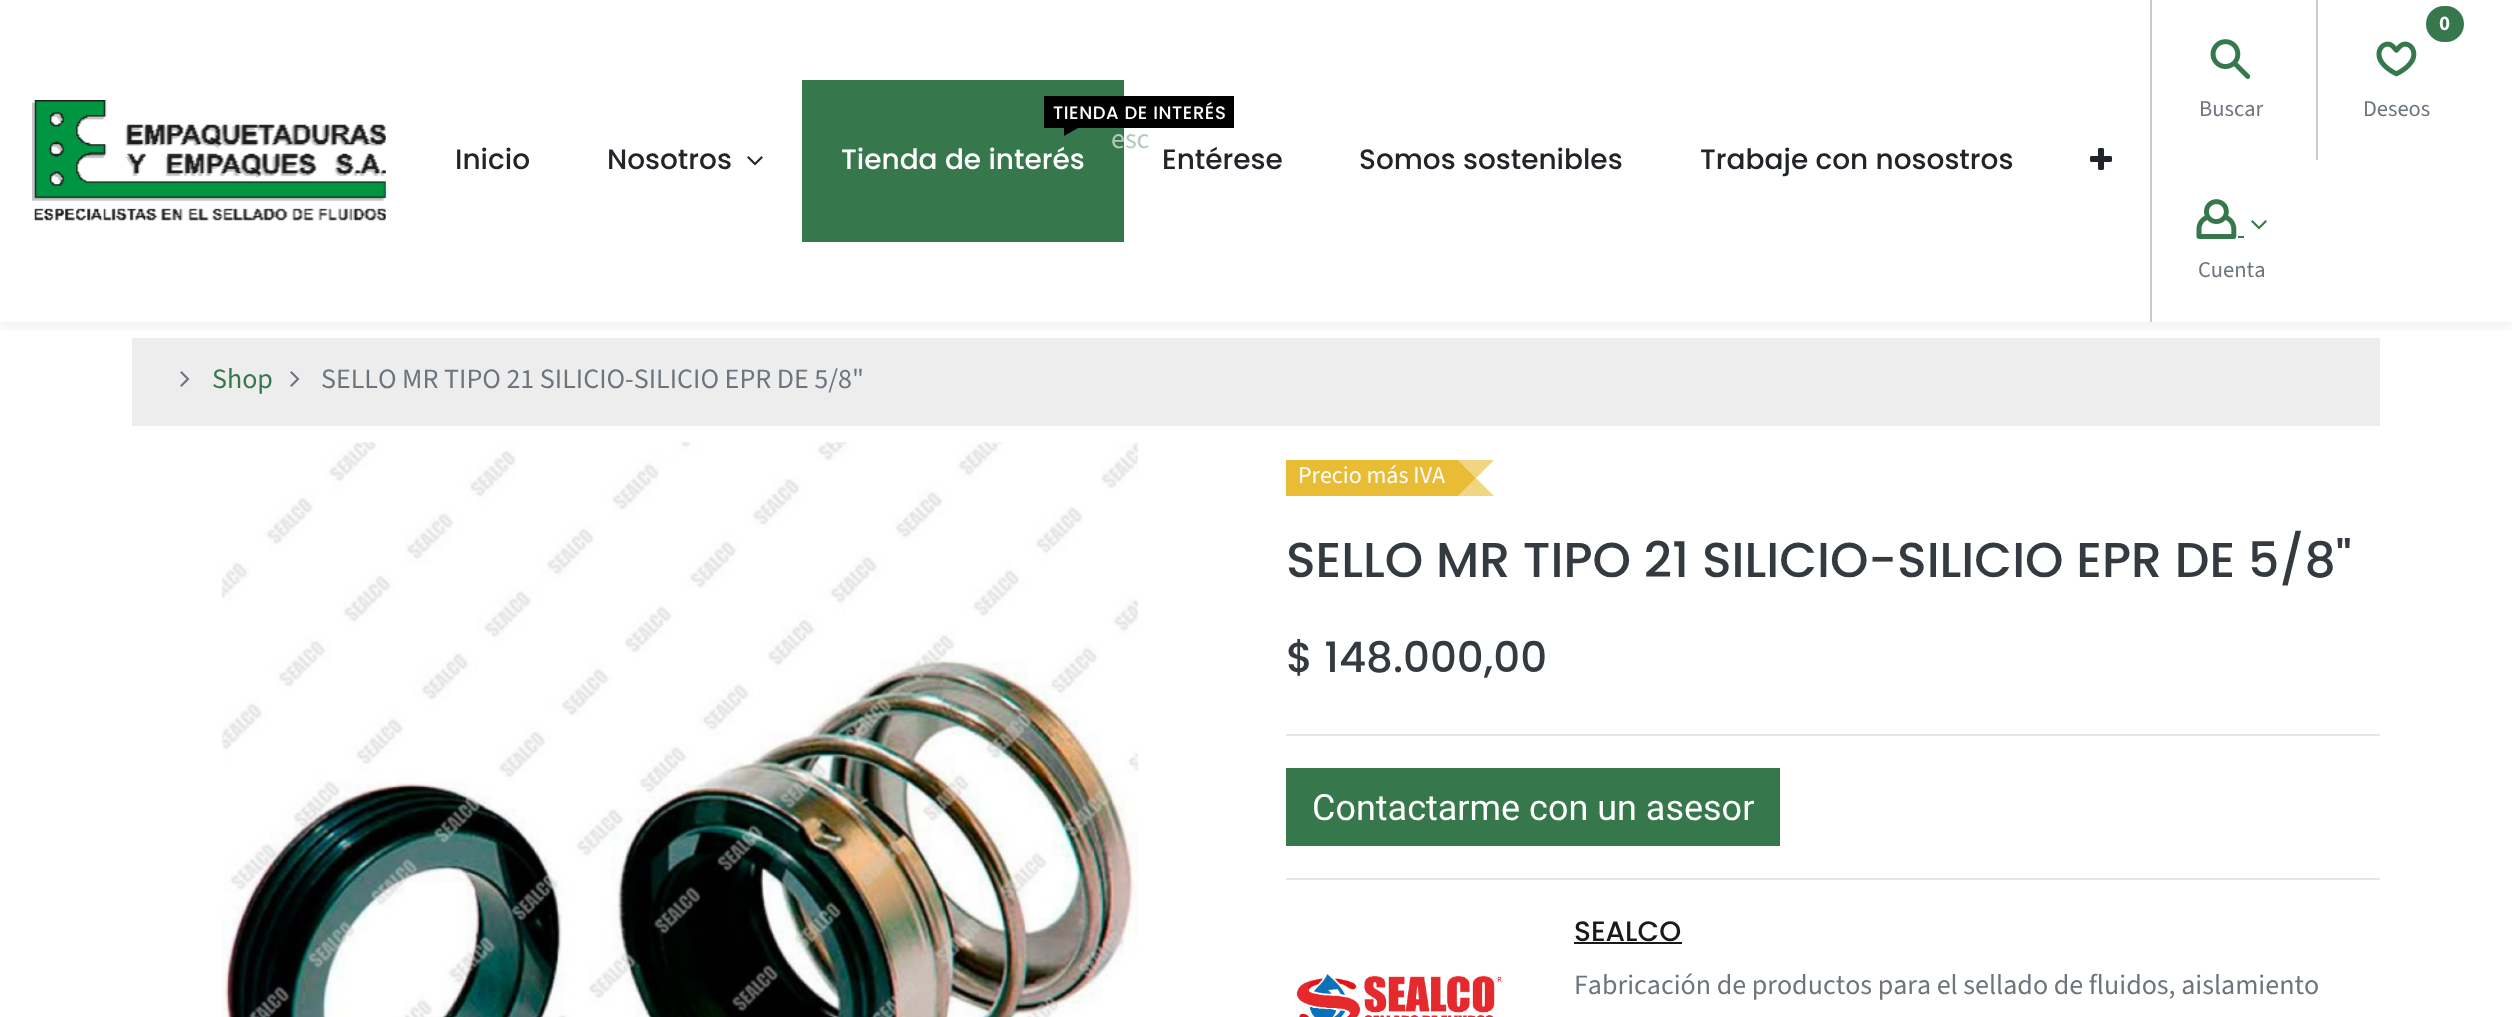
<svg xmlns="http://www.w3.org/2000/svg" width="2512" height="1017">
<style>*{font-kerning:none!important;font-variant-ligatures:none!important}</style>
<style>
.a{font:500 18px Poppins;letter-spacing:0.6px;fill:#fff}
.b{font:500 28px Poppins;fill:#fff}
.c{font:500 28px Poppins;fill:#212529}
.d{font:22.5px 'Source Sans 3';fill:#6c757d}
.e{font:bold 21px 'Source Sans 3';fill:#fff}
.f{font:28px 'Source Sans 3';fill:#36774c}
.g{font:28px 'Source Sans 3';fill:#6c757d}
.h{font:24px 'Source Sans 3';fill:#fff}
.i{font:500 49px Poppins;fill:#343a40}
.j{font:500 42px Poppins;fill:#343a40}
.k{font:36px Roboto;fill:#fff}
.l{font:500 28px Poppins;fill:#191a1a}
.m{font:28px 'Source Sans 3';fill:#b2cbba}
</style>
<defs>
<clipPath id="clip1"><path d="M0 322h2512v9H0z"/></clipPath>
</defs>
<rect width="100%" height="100%" fill="#fff"/>
<path fill="#ededed" d="M132 338h2248v88H132z"/>
<g clip-path="url(#clip1)">
<path fill="#00000012" filter="blur(8px)" d="M0 4h2512v322H0z"/>
</g>
<image href="1.png" x="32" y="100" width="354" height="121"/>
<path fill="#36774c" d="M802 80h322v162H802z"/>
<path fill="#000" d="M1044 96h190v32H1044z"/>
<path fill="#000" d="M1064 128h14l-14 8z"/>
<image href="2.png" x="747" y="156" width="16" height="10"/>
<image href="3.png" x="2090" y="148" width="22" height="22"/>
<path fill="#cacbcb" d="M2150 0h2v322H2150z"/>
<image href="4.png" x="2210" y="39" width="41" height="40"/>
<path fill="#cacbcb" d="M2316 0h2v160H2316z"/>
<rect fill="#36774c" x="2426" y="6" width="38" height="36" rx="18"/>
<image href="5.png" x="2376" y="41" width="41" height="36"/>
<image href="6.png" x="2196" y="199" width="41" height="40"/>
<image href="7.png" x="2251" y="220" width="16" height="10"/>
<path fill="#36774c" d="M2238 236h6v2H2238z"/>
<image href="8.png" x="180" y="371" width="10" height="16"/>
<image href="8.png" x="290" y="371" width="10" height="16"/>
<image href="9.png" x="221" y="442" width="917" height="575"/>
<path fill="#e9bc35" d="M1286 460h172v36H1286z"/>
<path fill="#f1d581" d="M1458 460h36l-18 18zm36 36h-36l18-18z"/>
<path fill="#e3ab02cc" d="M1458 496v-36l18 18z"/>
<path fill="#e6e6e6" d="M1286 734h1094v2H1286z"/>
<path fill="#36774c" d="M1286 768h494v78H1286z"/>
<path fill="#e6e6e6" d="M1286 878h1094v2H1286z"/>
<image href="10.png" x="1296" y="974" width="208" height="43"/>
<path fill="#191a1a" d="M1574 942h108v2H1574z"/>
<text class="a" x="1053" y="119">TIENDA DE INTERÉS</text>
<text class="b" x="841" y="169">Tienda de interés</text>
<text class="c" x="455" y="169">Inicio</text>
<text class="c" x="607" y="169">Nosotros</text>
<text class="c" x="1162" y="169">Entérese</text>
<text class="c" x="1359" y="169">Somos sostenibles</text>
<text class="c" x="1700" y="169">Trabaje con nosostros</text>
<text class="d" x="2199" y="116">Buscar</text>
<text class="e" x="2439" y="30">0</text>
<text class="d" x="2363" y="116">Deseos</text>
<text class="d" x="2198" y="277">Cuenta</text>
<text class="f" x="212" y="388">Shop</text>
<text class="g" x="321" y="388">SELLO MR TIPO 21 SILICIO-SILICIO EPR DE 5/8"</text>
<text class="h" x="1298" y="483">Precio más IVA</text>
<text class="i" x="1286" y="577">SELLO MR TIPO 21 SILICIO-SILICIO EPR DE 5/8"</text>
<text class="j" x="1286" y="672">$ 148.000,00</text>
<text class="k" x="1312" y="820">Contactarme con un asesor</text>
<text class="l" x="1574" y="941">SEALCO</text>
<text class="g" x="1574" y="994">Fabricación de productos para el sellado de fluidos, aislamiento</text>
<text class="m" x="1111" y="148">esc</text>
</svg>
